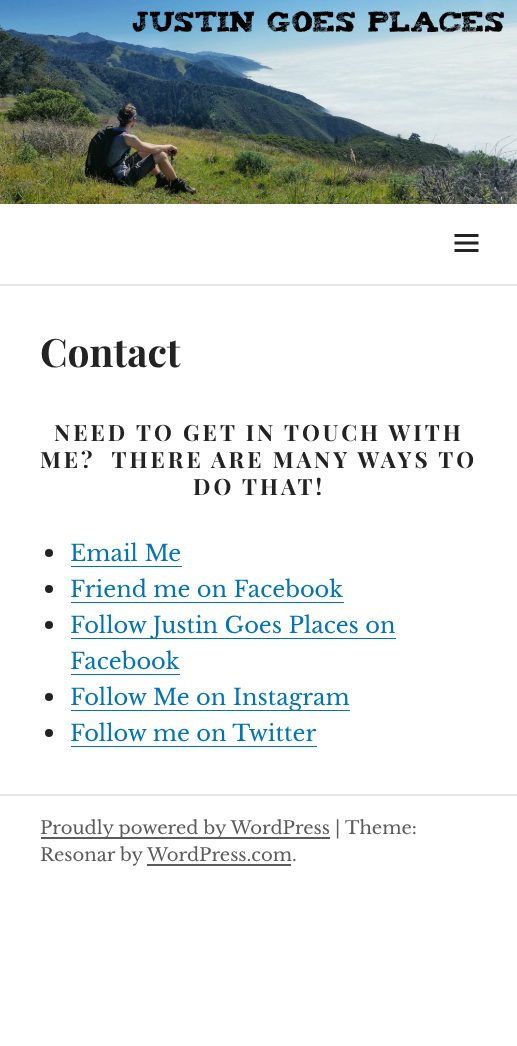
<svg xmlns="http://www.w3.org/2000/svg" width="517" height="1046">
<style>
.a{font:bold 39px Playfair Display;fill:#232323}
.b{font:bold 22.5px Playfair Display;letter-spacing:3px;fill:#232323}
.c{font:22.5px Libre Baskerville;fill:#0074b8}
.d{font:18px Libre Baskerville;fill:#5b5b5b}
</style>
<rect width="100%" height="100%" fill="#fff"/>
<image href="1.png" x="0" y="0" width="517" height="204"/>
<path fill="#e6e6e6" d="M0 284h517v2H0z"/>
<image href="2.png" x="454" y="234" width="25" height="18"/>
<circle fill="#232323" cx="49" cy="553" r="4"/>
<path fill="#0074b8" d="M71 566h111v1H71z"/>
<circle fill="#232323" cx="49" cy="589" r="4"/>
<path fill="#0074b8" d="M71 602h273v1H71z"/>
<circle fill="#232323" cx="49" cy="625" r="4"/>
<path fill="#0074b8" d="M71 638h325v1H71z"/>
<path fill="#0074b8" d="M71 674h109v1H71z"/>
<circle fill="#232323" cx="49" cy="697" r="4"/>
<path fill="#0074b8" d="M71 710h279v1H71z"/>
<circle fill="#232323" cx="49" cy="733" r="4"/>
<path fill="#0074b8" d="M71 746h246v1H71z"/>
<path fill="#e6e6e6" d="M0 794h517v2H0z"/>
<path fill="#5b5b5b" d="M41 837h289v2H41z"/>
<path fill="#5b5b5b" d="M147 864h144v2H147z"/>
<text class="a" x="40" y="367">Contact</text>
<text class="b" x="54" y="441">NEED TO GET IN TOUCH WITH</text>
<text class="b" xml:space="preserve" x="40" y="468">ME?  THERE ARE MANY WAYS TO</text>
<text class="b" x="193" y="495">DO THAT!</text>
<text class="c" x="70" y="561">Email Me</text>
<text class="c" x="70" y="597">Friend me on Facebook</text>
<text class="c" x="70" y="633">Follow Justin Goes Places on</text>
<text class="c" x="70" y="669">Facebook</text>
<text class="c" x="70" y="705">Follow Me on Instagram</text>
<text class="c" x="70" y="741">Follow me on Twitter</text>
<text class="d" x="40" y="834">Proudly powered by WordPress |</text>
<text class="d" x="345" y="834">Theme:</text>
<text class="d" x="40" y="861">Resonar by</text>
<text class="d" x="147" y="861">WordPress.com.</text>
</svg>
